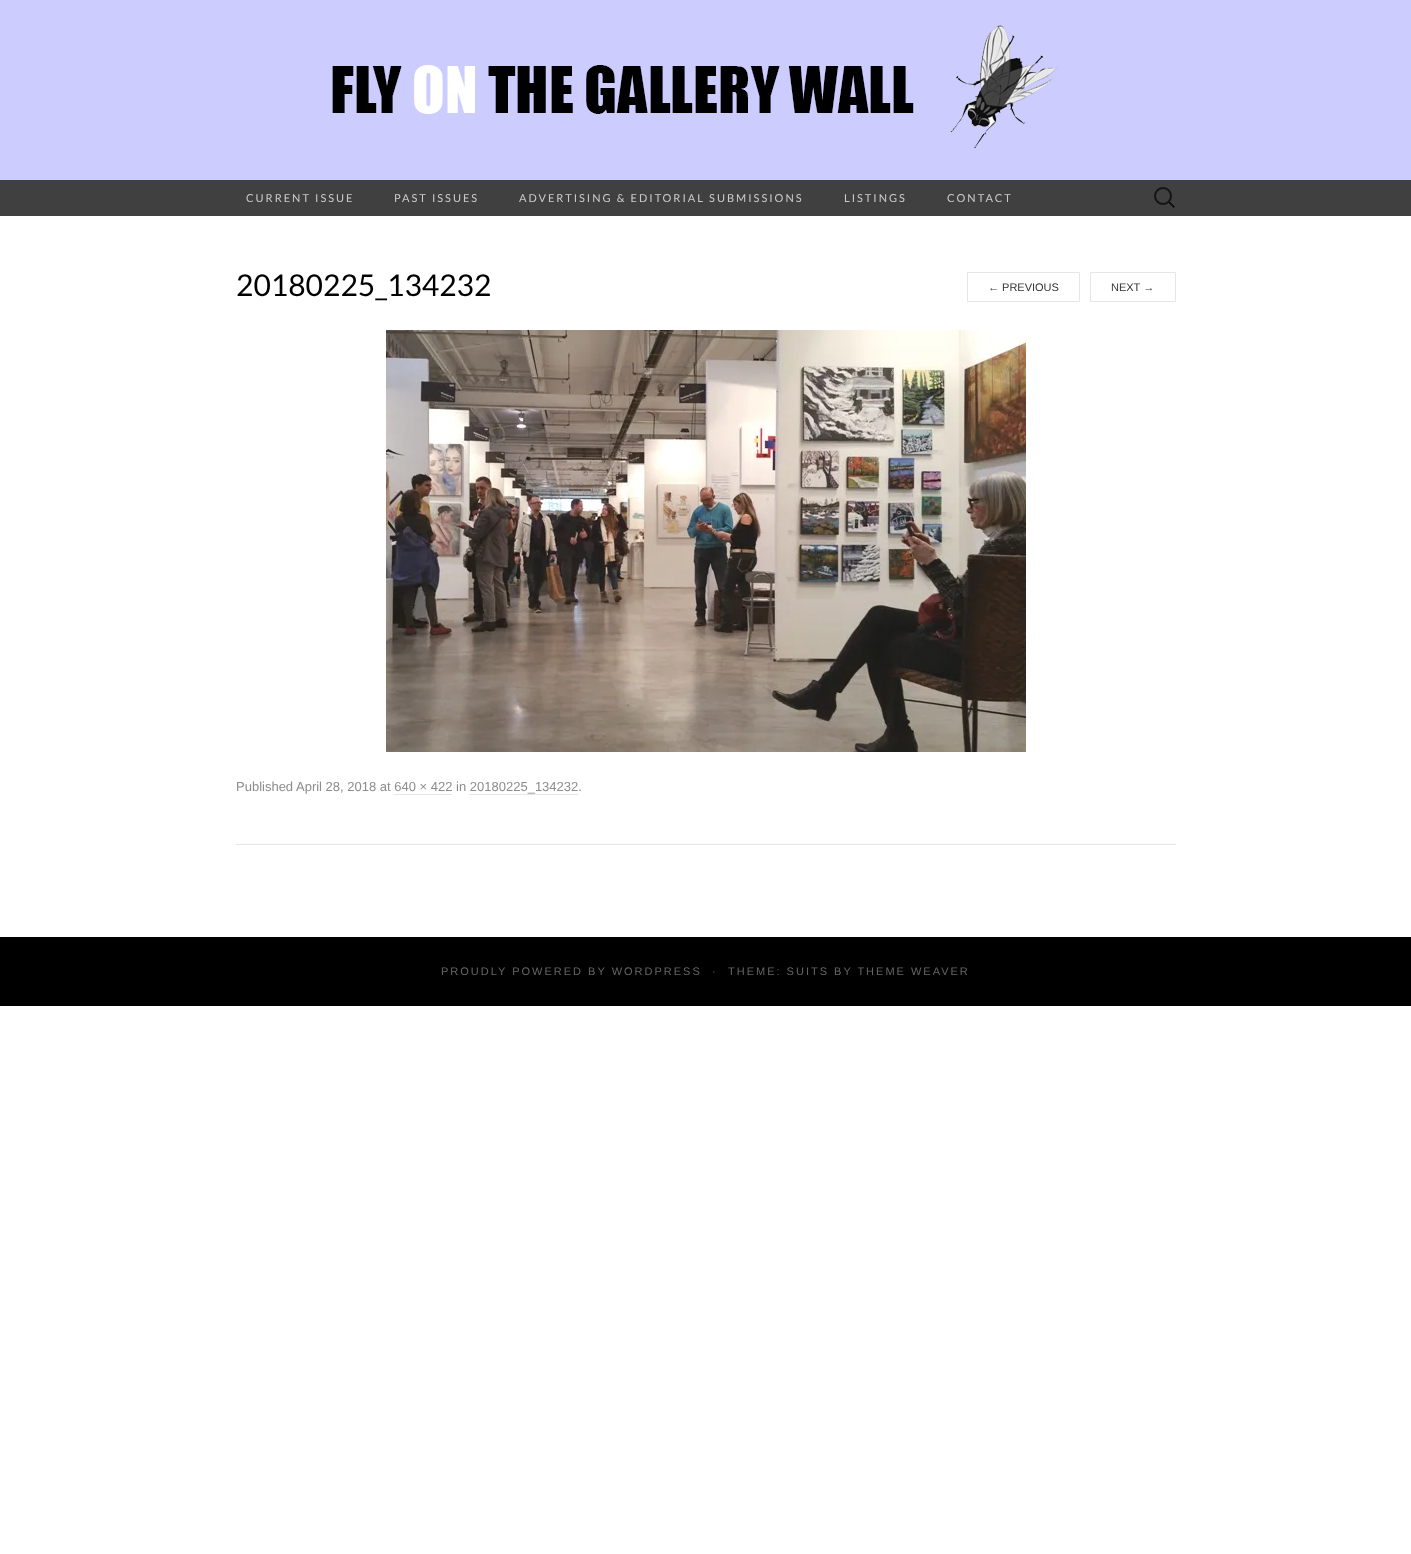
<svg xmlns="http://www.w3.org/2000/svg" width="1411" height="1554">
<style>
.a{font:11px Lato;letter-spacing:2px;fill:#ccc}
.b{font:30px Lato;fill:#000}
.c{font:11px Liberation Sans;fill:#333}
.d{font:13px Liberation Sans;fill:#8c8c8c}
.e{font:11px Liberation Sans;letter-spacing:2px;fill:#666}
</style>
<rect width="100%" height="100%" fill="#fff"/>
<path fill="#ccf" d="M0 0h1411v180H0z"/>
<image href="1.png" x="332" y="25" width="726" height="124"/>
<path fill="#404040" d="M0 180h1411v36H0z"/>
<image href="2.png" x="1154" y="187" width="21" height="21"/>
<path fill="#e6e6e6" d="M236 844h940v1H236z"/>
<path fill="none" stroke="#e6e6e6" d="M967.5 272.5h112v29H967.5z"/>
<path fill="none" stroke="#e6e6e6" d="M1090.5 272.5h85v29H1090.5z"/>
<image href="3.png" x="386" y="330" width="640" height="422"/>
<path fill="#e6e6e6" d="M394 794h58v1H394z"/>
<path fill="#e6e6e6" d="M469 794h109v1H469z"/>
<path fill="#000" d="M0 937h1411v69H0z"/>
<text class="a" x="246" y="202">CURRENT ISSUE</text>
<text class="a" x="394" y="202">PAST ISSUES</text>
<text class="a" x="519" y="202">ADVERTISING &amp; EDITORIAL SUBMISSIONS</text>
<text class="a" x="844" y="202">LISTINGS</text>
<text class="a" x="947" y="202">CONTACT</text>
<text class="b" x="236" y="296">20180225_134232</text>
<text class="c" x="988" y="291">← PREVIOUS</text>
<text class="c" x="1111" y="291">NEXT →</text>
<text class="d" x="236" y="791">Published</text>
<text class="d" x="296" y="791">April 28, 2018 at 640 × 422 in 20180225_134232.</text>
<text class="e" x="441" y="975">PROUDLY POWERED BY WORDPRESS</text>
<text class="e" x="712" y="975">·</text>
<text class="e" x="728" y="975">THEME: SUITS BY THEME WEAVER</text>
</svg>
